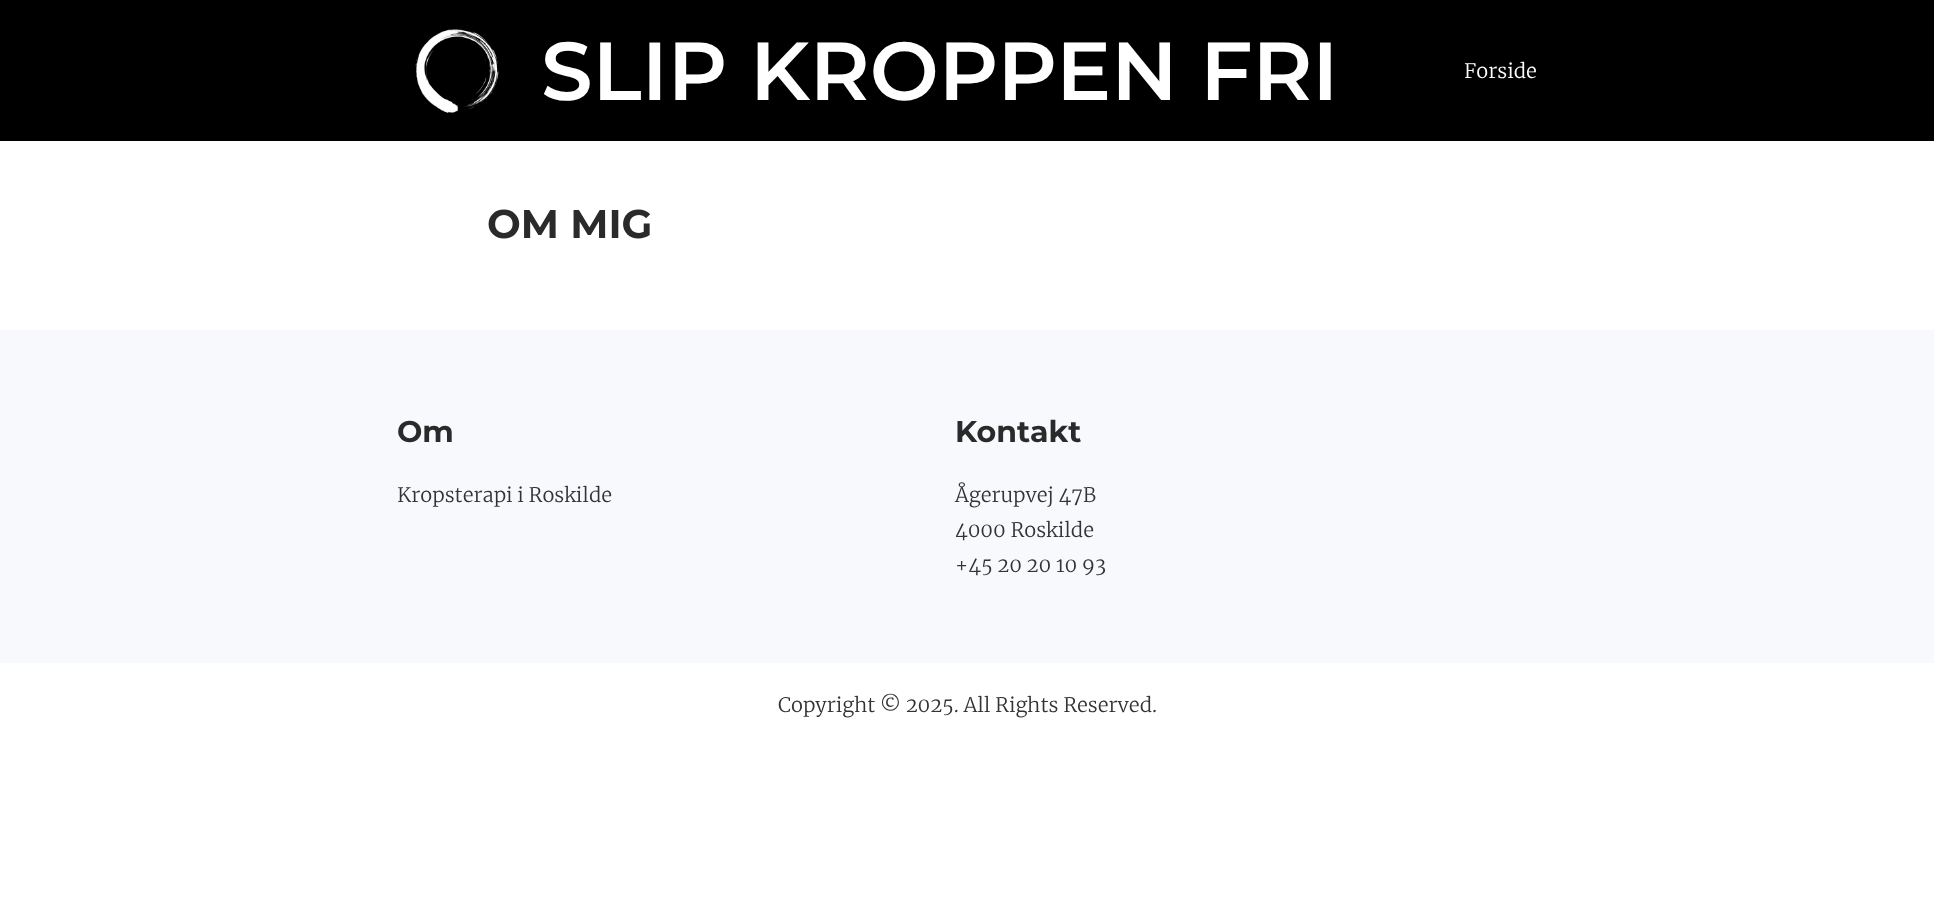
<svg xmlns="http://www.w3.org/2000/svg" width="1934" height="901">
<style>
.a{font:600 82px Montserrat;fill:#fff}
.b{font:300 20px Merriweather;fill:#fff}
.c{font:bold 40px Montserrat;fill:#2a2a2a}
.d{font:bold 30px Montserrat;fill:#2a2a2a}
.e{font:300 20px Merriweather;fill:#333}
</style>
<rect width="100%" height="100%" fill="#fff"/>
<path fill="#000" d="M0 0h1934v141H0z"/>
<image href="1.png" x="415" y="29" width="84" height="85"/>
<path fill="#f7f9fc" d="M0 330h1934v333H0z"/>
<text class="a" x="541" y="100">SLIP KROPPEN FRI</text>
<text class="b" x="1464" y="78">Forside</text>
<text class="c" x="487" y="238">OM MIG</text>
<text class="d" x="397" y="442">Om</text>
<text class="e" x="397" y="502">Kropsterapi i Roskilde</text>
<text class="d" x="955" y="442">Kontakt</text>
<text class="e" x="955" y="502">Ågerupvej 47B</text>
<text class="e" x="955" y="537">4000 Roskilde</text>
<text class="e" x="955" y="572">+45 20 20 10 93</text>
<text class="e" x="778" y="712">Copyright © 2025. All Rights Reserved.</text>
</svg>
